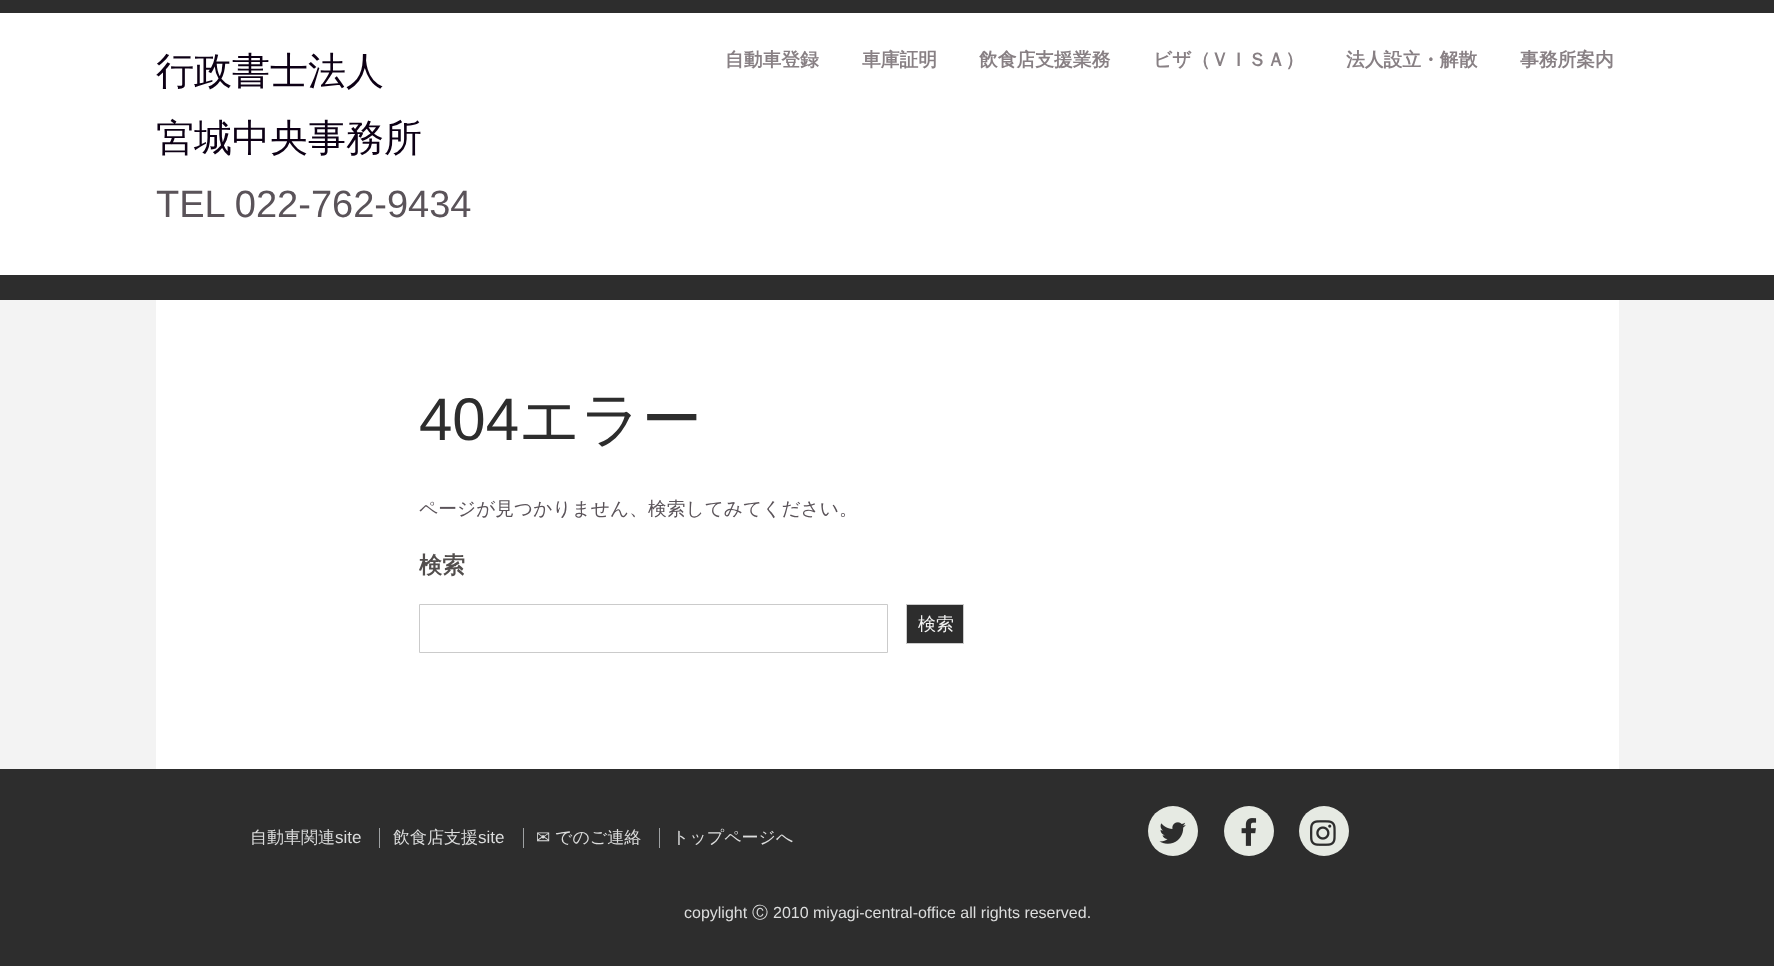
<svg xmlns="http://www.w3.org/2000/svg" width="1774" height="966">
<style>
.a{font:500 38px WenQuanYi Zen Hei;fill:#0d0015}
.b{font:38px Liberation Sans;fill:#5a5359}
.c{font:bold 18.75px WenQuanYi Zen Hei;fill:#888084}
.d{font:60px Liberation Sans;fill:#2d2d2d}
.e{font:500 60px WenQuanYi Zen Hei;fill:#2d2d2d}
.f{font:500 18.75px WenQuanYi Zen Hei;fill:#5a5359}
.g{font:bold 23px WenQuanYi Zen Hei;fill:#524e4d}
.h{font:500 18px WenQuanYi Zen Hei;fill:#f3f3f2}
.i{font:500 17px WenQuanYi Zen Hei;fill:#dcdddd}
.j{font:17px Liberation Sans;fill:#dcdddd}
.k{font:17px DejaVu Sans;fill:#dcdddd}
.l{font:16px Liberation Sans;fill:#dcdddd}
.m{font:500 16px WenQuanYi Zen Hei;fill:#dcdddd}
</style>
<rect width="100%" height="100%" fill="#2d2d2d"/>
<path fill="#fff" d="M0 13h1774v262H0z"/>
<path fill="#f3f3f3" d="M0 300h1774v469H0z"/>
<path fill="#fff" d="M156 300h1463v469H156z"/>
<path fill="none" stroke="#cbcbcb" d="M419.5 604.5h468v48H419.5z"/>
<path fill="#2d2d2d" stroke="#cbcbcb" d="M906.5 604.5h57v39H906.5z"/>
<path fill="#9ea1a3" d="M379 828h1v20H379z"/>
<path fill="#9ea1a3" d="M523 828h1v20H523z"/>
<path fill="#9ea1a3" d="M659 828h1v20H659z"/>
<circle fill="#e6eae3" cx="1173" cy="831" r="25"/>
<image href="1.png" x="1159" y="822" width="27" height="22"/>
<circle fill="#e6eae3" cx="1249" cy="831" r="25"/>
<image href="2.png" x="1241" y="818" width="16" height="28"/>
<circle fill="#e6eae3" cx="1324" cy="831" r="25"/>
<image href="3.png" x="1310" y="820" width="26" height="26"/>
<text class="a" x="156" y="84">行政書士法人</text>
<text class="a" x="156" y="151">宮城中央事務所</text>
<text class="b" x="156" y="217">TEL 022-762-9434</text>
<text class="c" x="725" y="66">自動車登録</text>
<text class="c" x="862" y="66">車庫証明</text>
<text class="c" x="979" y="66">飲食店支援業務</text>
<text class="c" x="1153" y="66">ビザ（ＶＩＳＡ）</text>
<text class="c" x="1346" y="66">法人設立・解散</text>
<text class="c" x="1520" y="66">事務所案内</text>
<text class="d" x="419" y="440">404</text>
<text class="e" x="519" y="440">エラー</text>
<text class="f" x="419" y="515">ページが見つかりません、検索してみてください。</text>
<text class="g" x="419" y="573">検索</text>
<text class="h" x="918" y="630">検索</text>
<text class="i" x="250" y="843">自動車関連</text>
<text class="j" x="335" y="843">site</text>
<text class="i" x="393" y="843">飲食店支援</text>
<text class="j" x="478" y="843">site</text>
<text class="k" x="536" y="843">✉</text>
<text class="i" x="555" y="843">でのご連絡</text>
<text class="i" x="672" y="843">トップページへ</text>
<text class="l" x="684" y="918">copylight</text>
<text class="m" x="752" y="918">Ⓒ</text>
<text class="l" x="773" y="918">2010 miyagi-central-office all rights reserved.</text>
</svg>
